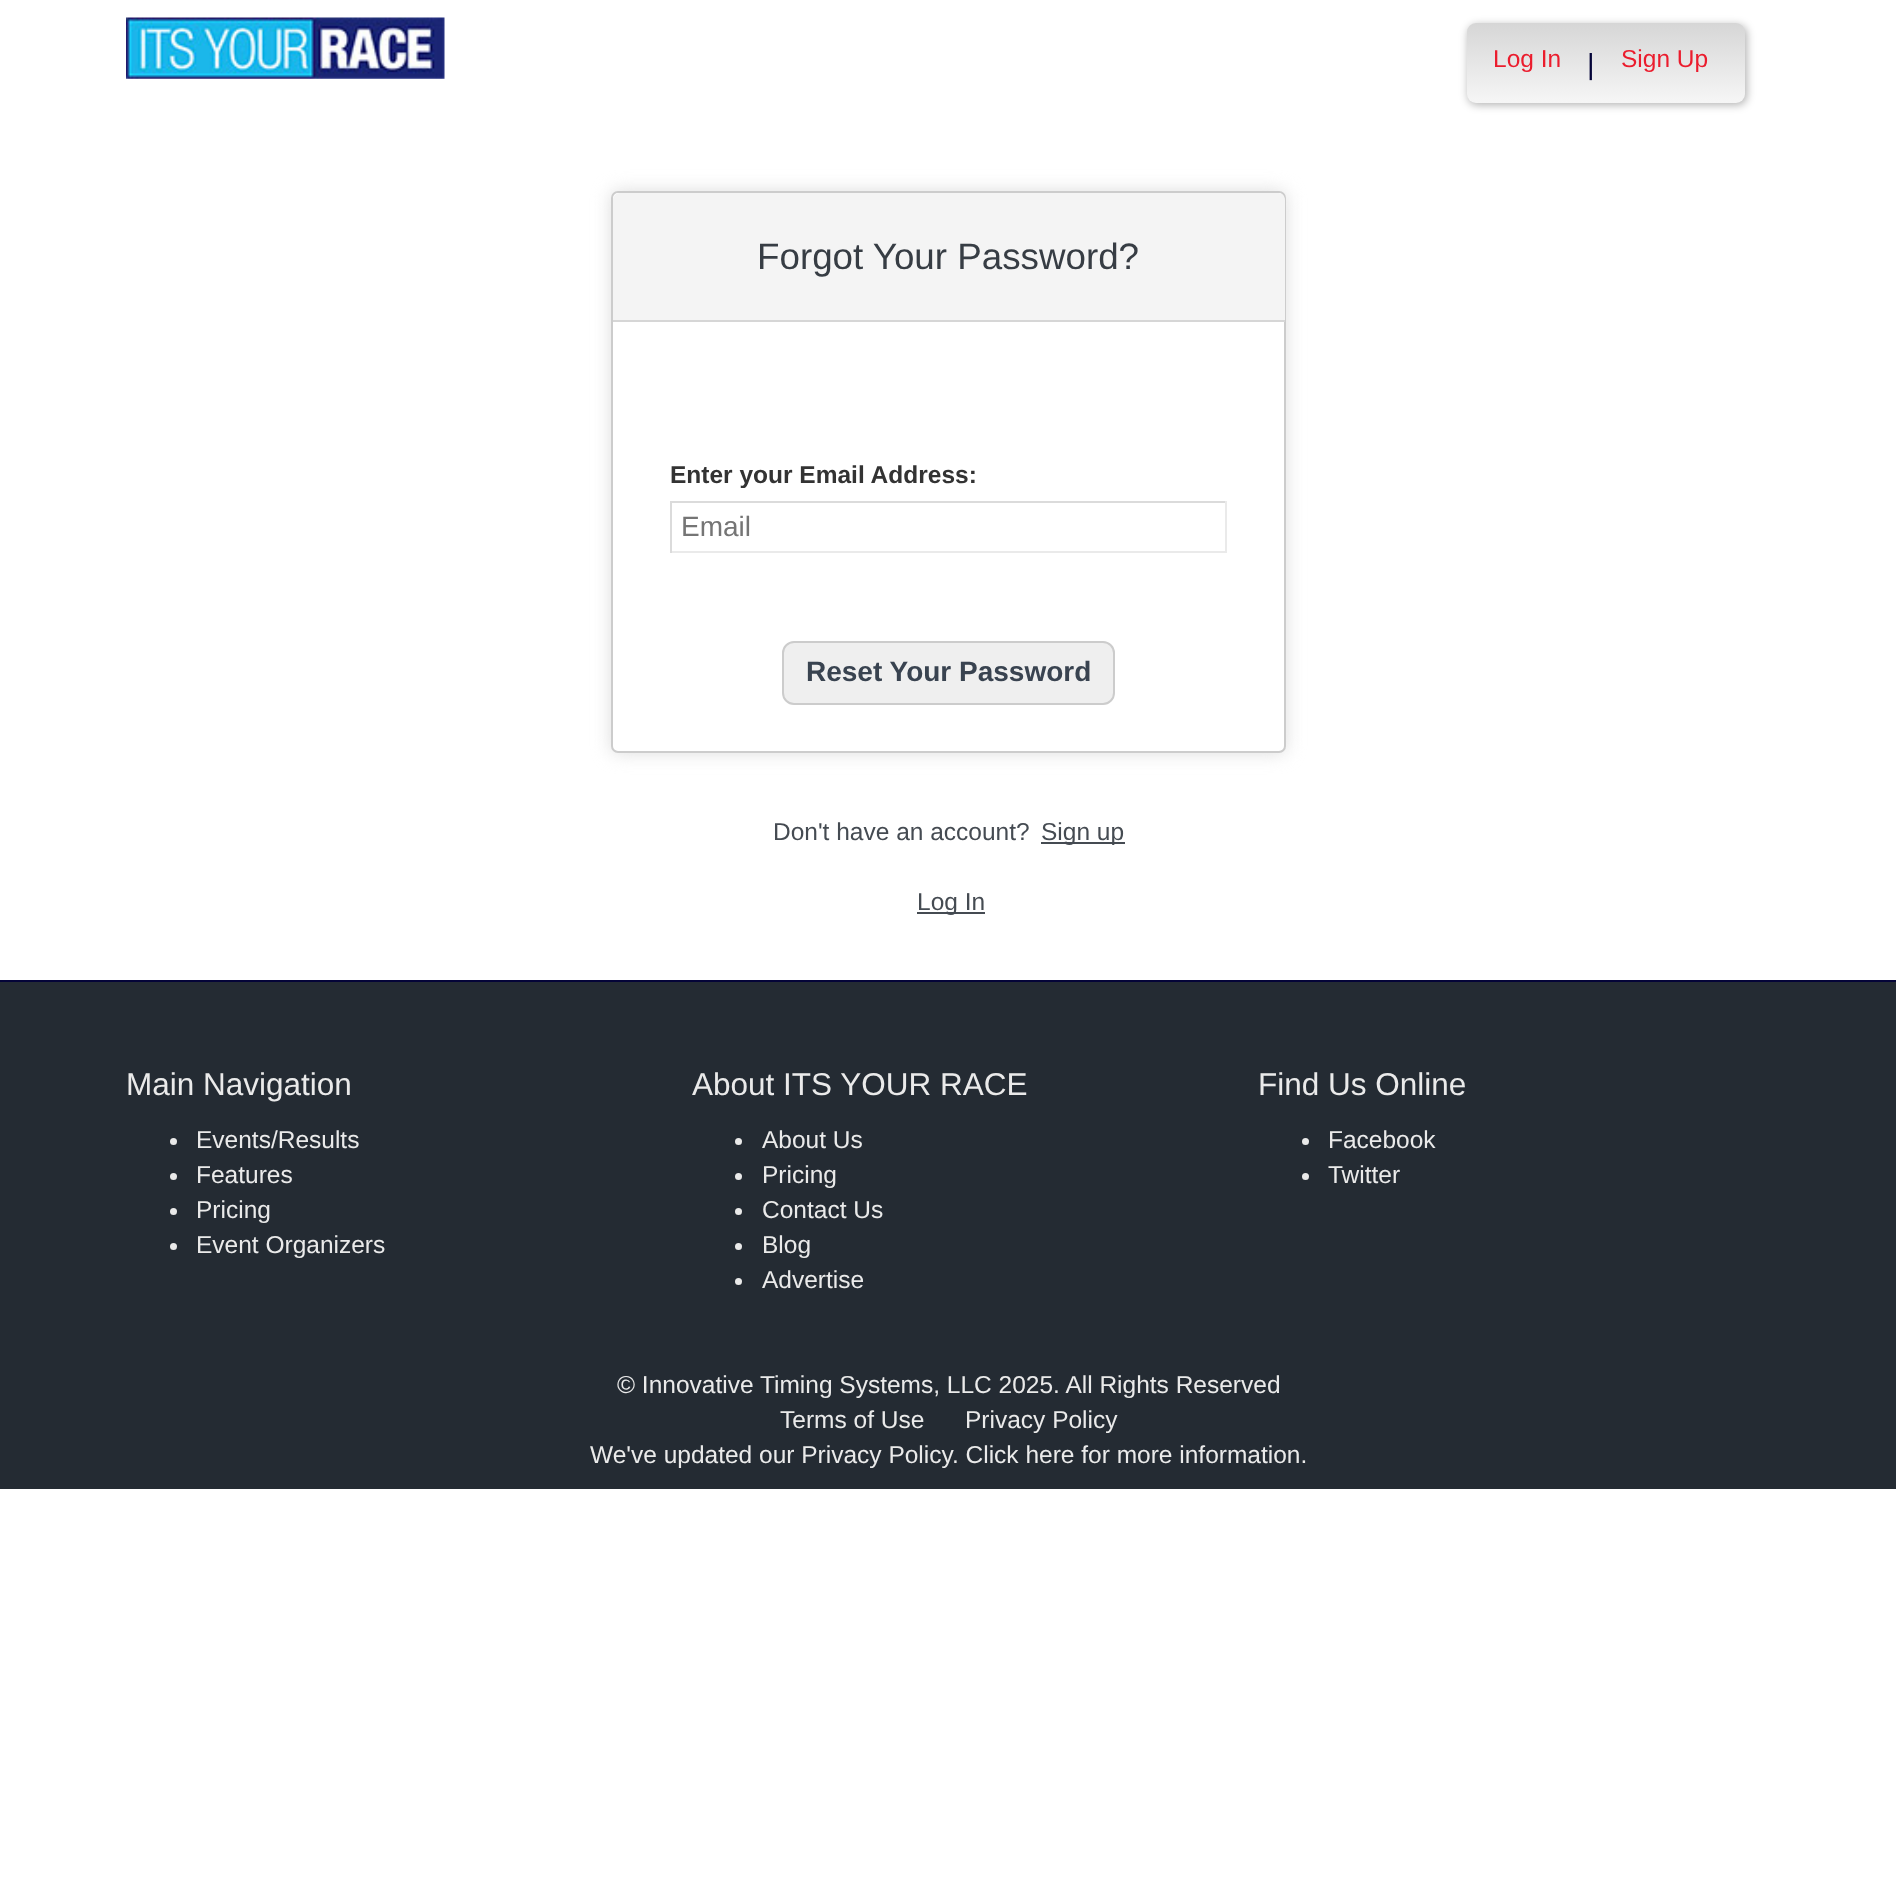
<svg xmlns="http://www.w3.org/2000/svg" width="1896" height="1877">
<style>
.a{font:24.5px Liberation Sans;fill:#eb1c2d}
.b{font:29px Liberation Sans;fill:#040438}
.c{font:36.75px Liberation Sans;fill:#373d44}
.d{font:bold 24.5px Liberation Sans;fill:#333}
.e{font:28px Liberation Sans;fill:#757575}
.f{font:bold 28px Liberation Sans;fill:#394350}
.g{font:24.5px Liberation Sans;fill:#454b52}
.h{font:31.5px Liberation Sans;fill:#eaeaea}
.i{font:24.5px Liberation Sans;fill:#eaeaea}
</style>
<defs>
<linearGradient id="g1" gradientUnits="userSpaceOnUse" x1="1606" y1="23" x2="1606" y2="103"><stop offset="0" stop-color="#d6d6d6"/><stop offset="1" stop-color="#f6f6f6"/></linearGradient>
</defs>
<rect width="100%" height="100%" fill="#fff"/>
<image href="1.png" x="126" y="17" width="319" height="62"/>
<rect fill="#0000004d" filter="blur(4.5px)" x="1468" y="25" width="279" height="80" rx="9"/>
<rect fill="url(#g1)" x="1467" y="23" width="278" height="80" rx="9"/>
<rect fill="#ddd" filter="blur(9px)" x="611" y="191" width="675" height="562" rx="7"/>
<rect fill="#fff" stroke="#ccc" stroke-width="2" x="612" y="192" width="673" height="560" rx="6"/>
<path fill="#f4f4f4" d="M620 193h658c4 0 7 3 7 7v120c0 1-1 2-2 2h-670v-122c0-4 3-7 7-7z"/>
<path fill="#d6d6d6" d="M613 320h672v2H613z"/>
<path fill="#dbdbdb" d="M670 501h557v2H670z"/>
<path fill="#eaeaea" d="M1225 501h2v52H1225z"/>
<path fill="#eaeaea" d="M670 551h557v2H670z"/>
<path fill="#dbdbdb" d="M670 501h2v52H670z"/>
<rect fill="#efefef" stroke="#ccc" stroke-width="2" x="783" y="642" width="331" height="62" rx="11"/>
<path fill="#454b52" d="M1041 842h84v2H1041z"/>
<path fill="#454b52" d="M917 912h68v2H917z"/>
<path fill="#242b33" d="M0 982h1896v507H0z"/>
<path fill="#040438" d="M0 980h1896v2H0z"/>
<circle fill="#eaeaea" cx="173.5" cy="1141.5" r="3.5"/>
<circle fill="#eaeaea" cx="173.5" cy="1176.5" r="3.5"/>
<circle fill="#eaeaea" cx="173.5" cy="1211.5" r="3.5"/>
<circle fill="#eaeaea" cx="173.5" cy="1246.5" r="3.5"/>
<circle fill="#eaeaea" cx="738.5" cy="1141.5" r="3.5"/>
<circle fill="#eaeaea" cx="738.5" cy="1176.5" r="3.5"/>
<circle fill="#eaeaea" cx="738.5" cy="1211.5" r="3.5"/>
<circle fill="#eaeaea" cx="738.5" cy="1246.5" r="3.5"/>
<circle fill="#eaeaea" cx="738.5" cy="1281.5" r="3.5"/>
<circle fill="#eaeaea" cx="1305.5" cy="1141.5" r="3.5"/>
<circle fill="#eaeaea" cx="1305.5" cy="1176.5" r="3.5"/>
<text class="a" x="1493" y="67">Log In</text>
<text class="b" x="1587" y="74">|</text>
<text class="a" x="1621" y="67">Sign Up</text>
<text class="c" x="757" y="269">Forgot Your Password?</text>
<text class="d" x="670" y="483">Enter your Email Address:</text>
<text class="e" x="681" y="536">Email</text>
<text class="f" x="806" y="681">Reset Your Password</text>
<text class="g" x="773" y="840">Don't have an account?</text>
<text class="g" x="1041" y="840">Sign up</text>
<text class="g" x="917" y="910">Log In</text>
<text class="h" x="126" y="1095">Main Navigation</text>
<text class="i" x="196" y="1148">Events/Results</text>
<text class="i" x="196" y="1183">Features</text>
<text class="i" x="196" y="1218">Pricing</text>
<text class="i" x="196" y="1253">Event Organizers</text>
<text class="h" x="692" y="1095">About ITS YOUR RACE</text>
<text class="i" x="762" y="1148">About Us</text>
<text class="i" x="762" y="1183">Pricing</text>
<text class="i" x="762" y="1218">Contact Us</text>
<text class="i" x="762" y="1253">Blog</text>
<text class="i" x="762" y="1288">Advertise</text>
<text class="h" x="1258" y="1095">Find Us Online</text>
<text class="i" x="1328" y="1148">Facebook</text>
<text class="i" x="1328" y="1183">Twitter</text>
<text class="i" x="617" y="1393">© Innovative Timing Systems, LLC 2025. All Rights Reserved</text>
<text class="i" x="780" y="1428">Terms of Use</text>
<text class="i" x="965" y="1428">Privacy Policy</text>
<text class="i" x="590" y="1463">We've updated our Privacy Policy. Click here for more information.</text>
</svg>
